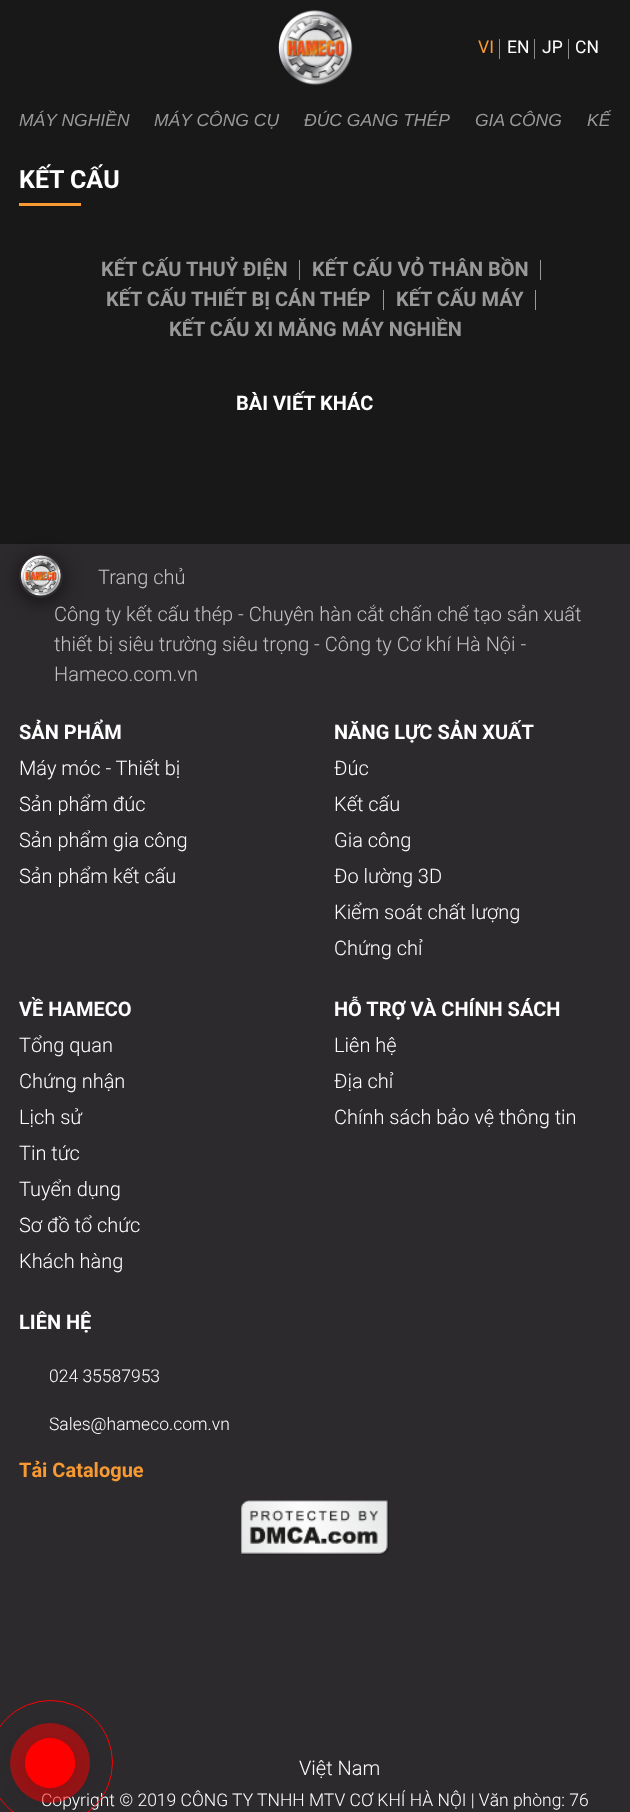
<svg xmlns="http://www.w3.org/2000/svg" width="630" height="1812">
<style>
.a{font:17.5px Roboto;fill:#f89a33}
.b{font:17.5px Roboto;fill:#fff}
.c{font:italic 17.5px Liberation Sans;fill:#999}
.d{font:bold 25px Roboto;fill:#fff}
.e{font:bold 20px Roboto;fill:#999}
.f{font:bold 20px Roboto;fill:#fff}
.g{font:300 20px Roboto;fill:#c3c3c3}
.h{font:300 20px Roboto;fill:#fff}
.i{font:300 17.5px Roboto;fill:#fff}
.j{font:bold 20px Roboto;fill:#f89a33}
</style>
<defs>
<clipPath id="clip1"><path d="M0 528h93v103h-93zm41 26c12 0 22 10 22 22c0 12-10 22-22 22c-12 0-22-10-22-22c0-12 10-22 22-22z" clip-rule="evenodd"/></clipPath>
</defs>
<rect width="100%" height="100%" fill="#191818"/>
<image href="1.png" x="278" y="10" width="75" height="76"/>
<path fill="#8c8c8c" d="M499 39h1v20H499z"/>
<path fill="#8c8c8c" d="M534 39h1v20H534z"/>
<path fill="#8c8c8c" d="M568 39h1v20H568z"/>
<path fill="#f89a33" d="M19 203h62v3H19z"/>
<path fill="#999" d="M299 260h1v20H299z"/>
<path fill="#999" d="M540 260h1v20H540z"/>
<path fill="#999" d="M383 290h1v20H383z"/>
<path fill="#999" d="M535 290h1v20H535z"/>
<path fill="#2d2a2d" d="M0 544h630v1268H0z"/>
<g clip-path="url(#clip1)">
<rect fill="#00000099" filter="blur(9.5px)" x="19" y="558" width="44" height="43" rx="21.5"/>
</g>
<image href="2.png" x="20" y="555" width="41" height="41"/>
<image href="3.png" x="241" y="1500" width="148" height="55"/>
<rect fill="#0000004d" filter="blur(12.5px)" x="25" y="1744" width="50" height="50" rx="25"/>
<circle fill="#f00" cx="50" cy="1763" r="25"/>
<text class="a" x="478" y="53">VI</text>
<text class="b" x="507" y="53">EN</text>
<text class="b" x="542" y="53">JP</text>
<text class="b" x="575" y="53">CN</text>
<text class="c" x="19" y="126">MÁY NGHIỀN</text>
<text class="c" x="154" y="126">MÁY CÔNG CỤ</text>
<text class="c" x="304" y="126">ĐÚC GANG THÉP</text>
<text class="c" x="475" y="126">GIA CÔNG</text>
<text class="c" x="587" y="126">KẾ</text>
<text class="d" x="19" y="188">KẾT CẤU</text>
<text class="e" x="101" y="276">KẾT CẤU THUỶ ĐIỆN</text>
<text class="e" x="312" y="276">KẾT CẤU VỎ THÂN BỒN</text>
<text class="e" x="106" y="306">KẾT CẤU THIẾT BỊ CÁN THÉP</text>
<text class="e" x="396" y="306">KẾT CẤU MÁY</text>
<text class="e" x="169" y="336">KẾT CẤU XI MĂNG MÁY NGHIỀN</text>
<text class="f" x="236" y="410">BÀI VIẾT KHÁC</text>
<text class="g" x="98" y="584">Trang chủ</text>
<text class="g" x="54" y="621">Công ty kết cấu thép - Chuyên hàn cắt chấn chế tạo sản xuất</text>
<text class="g" x="54" y="651">thiết bị siêu trường siêu trọng - Công ty Cơ khí Hà Nội -</text>
<text class="g" x="54" y="681">Hameco.com.vn</text>
<text class="f" x="19" y="739">SẢN PHẨM</text>
<text class="h" x="19" y="775">Máy móc - Thiết bị</text>
<text class="h" x="19" y="811">Sản phẩm đúc</text>
<text class="h" x="19" y="847">Sản phẩm gia công</text>
<text class="h" x="19" y="883">Sản phẩm kết cấu</text>
<text class="f" x="334" y="739">NĂNG LỰC SẢN XUẤT</text>
<text class="h" x="334" y="775">Đúc</text>
<text class="h" x="334" y="811">Kết cấu</text>
<text class="h" x="334" y="847">Gia công</text>
<text class="h" x="334" y="883">Đo lường 3D</text>
<text class="h" x="334" y="919">Kiểm soát chất lượng</text>
<text class="h" x="334" y="955">Chứng chỉ</text>
<text class="f" x="19" y="1016">VỀ HAMECO</text>
<text class="h" x="19" y="1052">Tổng quan</text>
<text class="h" x="19" y="1088">Chứng nhận</text>
<text class="h" x="19" y="1124">Lịch sử</text>
<text class="h" x="19" y="1160">Tin tức</text>
<text class="h" x="19" y="1196">Tuyển dụng</text>
<text class="h" x="19" y="1232">Sơ đồ tổ chức</text>
<text class="h" x="19" y="1268">Khách hàng</text>
<text class="f" x="334" y="1016">HỖ TRỢ VÀ CHÍNH SÁCH</text>
<text class="h" x="334" y="1052">Liên hệ</text>
<text class="h" x="334" y="1088">Địa chỉ</text>
<text class="h" x="334" y="1124">Chính sách bảo vệ thông tin</text>
<text class="f" x="19" y="1329">LIÊN HỆ</text>
<text class="i" x="49" y="1382">024 35587953</text>
<text class="i" x="49" y="1430">Sales@hameco.com.vn</text>
<text class="j" x="19" y="1477">Tải Catalogue</text>
<text class="h" x="299" y="1775">Việt Nam</text>
<text class="i" x="41" y="1806">Copyright © 2019 CÔNG TY TNHH MTV CƠ KHÍ HÀ NỘI | Văn phòng: 76</text>
<circle fill="#ff000080" cx="50" cy="1763" r="40"/>
<circle fill="none" stroke="#f00" cx="50.5" cy="1762.5" r="62"/>
<circle fill="#ff0000b3" cx="50" cy="1763" r="25"/>
</svg>
